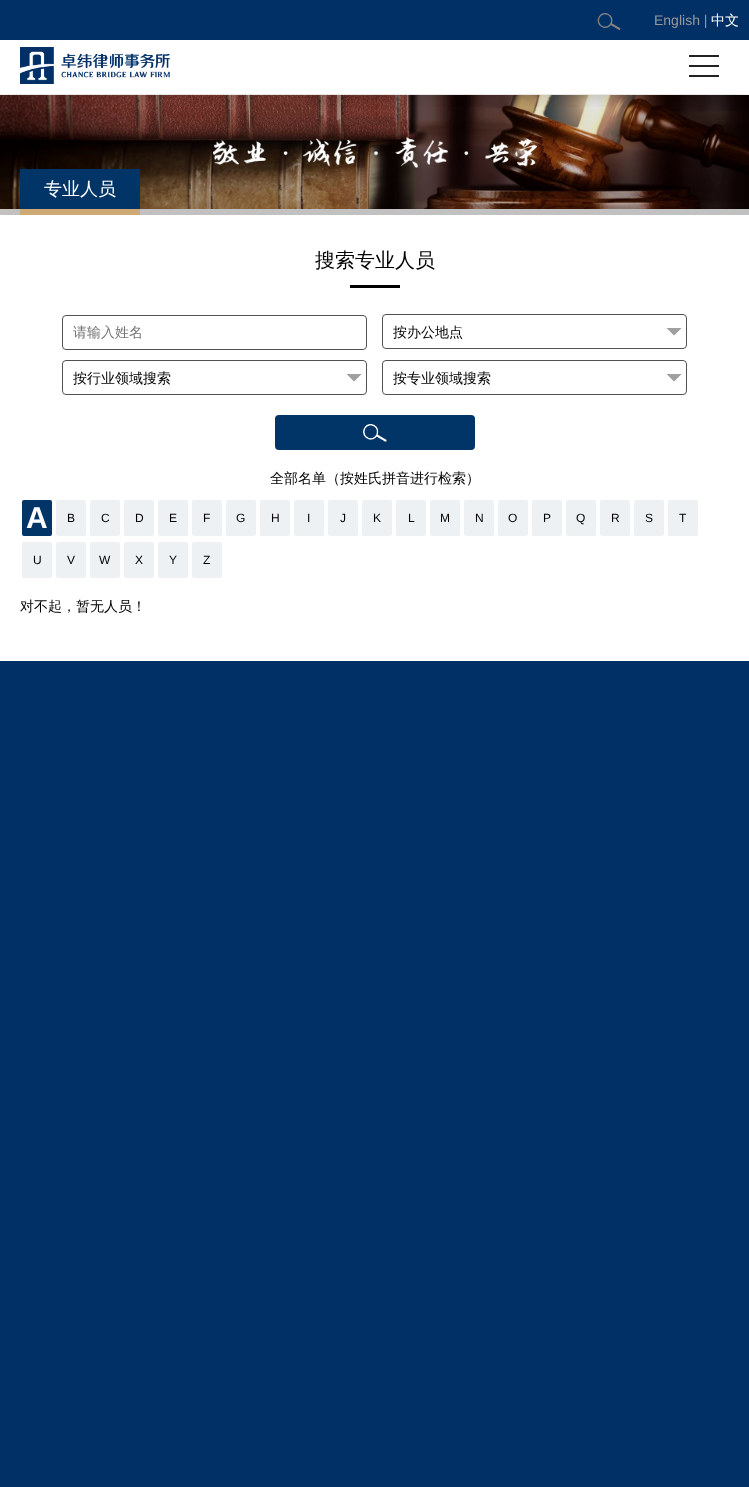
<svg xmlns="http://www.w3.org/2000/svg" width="749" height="1487">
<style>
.a{font:14px Liberation Sans;fill:#989898}
.b{font:500 14px WenQuanYi Zen Hei;fill:#fff}
.c{font:500 18px WenQuanYi Zen Hei;fill:#fff}
.d{font:500 20px WenQuanYi Zen Hei;fill:#000}
.e{font:500 14px WenQuanYi Zen Hei;fill:#757575}
.f{font:500 14px WenQuanYi Zen Hei;fill:#000}
.g{font:bold 30px Liberation Sans;fill:#fff}
.h{font:12px Liberation Sans;fill:#000}
</style>
<defs>
<clipPath id="clip1"><path d="M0 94h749v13H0z"/></clipPath>
</defs>
<rect width="100%" height="100%" fill="#013067"/>
<path fill="#fff" d="M0 40h749v621H0z"/>
<image href="3.png" x="0" y="95" width="749" height="114"/>
<g clip-path="url(#clip1)">
<path fill="#00000033" filter="blur(10px)" d="M0 39h749v55H0z"/>
</g>
<path fill="#013067" d="M0 28h749v11H0z"/>
<image href="1.png" x="597" y="13" width="24" height="17"/>
<image href="2.png" x="20" y="47" width="150" height="37"/>
<path fill="#222" d="M689 55h30v2H689z"/>
<path fill="#222" d="M689 65h30v2H689z"/>
<path fill="#222" d="M689 75h30v2H689z"/>
<path fill="#023567" d="M20 169h120v40H20z"/>
<path fill="#c1c1c1" d="M0 209h749v6H0z"/>
<path fill="#cca975" d="M20 209h120v6H20z"/>
<path fill="#000" d="M350 285h50v3H350z"/>
<rect fill="none" stroke="#535353" x="62.5" y="315.5" width="304" height="34" rx="3.5"/>
<image href="4.png" x="666" y="328" width="16" height="8"/>
<rect fill="none" stroke="#535353" x="382.5" y="314.5" width="304" height="34" rx="3.5"/>
<image href="4.png" x="346" y="374" width="16" height="8"/>
<rect fill="none" stroke="#535353" x="62.5" y="360.5" width="304" height="34" rx="3.5"/>
<image href="4.png" x="666" y="374" width="16" height="8"/>
<rect fill="none" stroke="#535353" x="382.5" y="360.5" width="304" height="34" rx="3.5"/>
<rect fill="#023567" x="275" y="415" width="200" height="35" rx="4"/>
<image href="5.png" x="363" y="424" width="24" height="18"/>
<rect fill="#023567" x="22" y="500" width="30" height="36" rx="2"/>
<rect fill="#edf1f4" x="56" y="500" width="30" height="36" rx="2"/>
<rect fill="#edf1f4" x="90" y="500" width="30" height="36" rx="2"/>
<rect fill="#edf1f4" x="124" y="500" width="30" height="36" rx="2"/>
<rect fill="#edf1f4" x="158" y="500" width="30" height="36" rx="2"/>
<rect fill="#edf1f4" x="192" y="500" width="30" height="36" rx="2"/>
<rect fill="#edf1f4" x="226" y="500" width="30" height="36" rx="2"/>
<rect fill="#edf1f4" x="260" y="500" width="30" height="36" rx="2"/>
<rect fill="#edf1f4" x="294" y="500" width="30" height="36" rx="2"/>
<rect fill="#edf1f4" x="328" y="500" width="30" height="36" rx="2"/>
<rect fill="#edf1f4" x="362" y="500" width="30" height="36" rx="2"/>
<rect fill="#edf1f4" x="396" y="500" width="30" height="36" rx="2"/>
<rect fill="#edf1f4" x="430" y="500" width="30" height="36" rx="2"/>
<rect fill="#edf1f4" x="464" y="500" width="30" height="36" rx="2"/>
<rect fill="#edf1f4" x="498" y="500" width="30" height="36" rx="2"/>
<rect fill="#edf1f4" x="532" y="500" width="30" height="36" rx="2"/>
<rect fill="#edf1f4" x="566" y="500" width="30" height="36" rx="2"/>
<rect fill="#edf1f4" x="600" y="500" width="30" height="36" rx="2"/>
<rect fill="#edf1f4" x="634" y="500" width="30" height="36" rx="2"/>
<rect fill="#edf1f4" x="668" y="500" width="30" height="36" rx="2"/>
<rect fill="#edf1f4" x="22" y="542" width="30" height="36" rx="2"/>
<rect fill="#edf1f4" x="56" y="542" width="30" height="36" rx="2"/>
<rect fill="#edf1f4" x="90" y="542" width="30" height="36" rx="2"/>
<rect fill="#edf1f4" x="124" y="542" width="30" height="36" rx="2"/>
<rect fill="#edf1f4" x="158" y="542" width="30" height="36" rx="2"/>
<rect fill="#edf1f4" x="192" y="542" width="30" height="36" rx="2"/>
<text class="a" x="654" y="25">English |</text>
<text class="b" x="711" y="25">中文</text>
<text class="c" x="44" y="195">专业人员</text>
<text class="d" x="315" y="267">搜索专业人员</text>
<text class="e" x="73" y="337">请输入姓名</text>
<text class="f" x="393" y="337">按办公地点</text>
<text class="f" x="73" y="383">按行业领域搜索</text>
<text class="f" x="393" y="383">按专业领域搜索</text>
<text class="f" x="270" y="483">全部名单（按姓氏拼音进行检索）</text>
<text class="g" x="26" y="528">A</text>
<text class="h" x="67" y="522">B</text>
<text class="h" x="101" y="522">C</text>
<text class="h" x="135" y="522">D</text>
<text class="h" x="169" y="522">E</text>
<text class="h" x="203" y="522">F</text>
<text class="h" x="236" y="522">G</text>
<text class="h" x="271" y="522">H</text>
<text class="h" x="307" y="522">I</text>
<text class="h" x="340" y="522">J</text>
<text class="h" x="373" y="522">K</text>
<text class="h" x="408" y="522">L</text>
<text class="h" x="440" y="522">M</text>
<text class="h" x="475" y="522">N</text>
<text class="h" x="508" y="522">O</text>
<text class="h" x="543" y="522">P</text>
<text class="h" x="576" y="522">Q</text>
<text class="h" x="611" y="522">R</text>
<text class="h" x="645" y="522">S</text>
<text class="h" x="679" y="522">T</text>
<text class="h" x="33" y="564">U</text>
<text class="h" x="67" y="564">V</text>
<text class="h" x="99" y="564">W</text>
<text class="h" x="135" y="564">X</text>
<text class="h" x="169" y="564">Y</text>
<text class="h" x="203" y="564">Z</text>
<text class="f" x="20" y="611">对不起，暂无人员！</text>
</svg>
